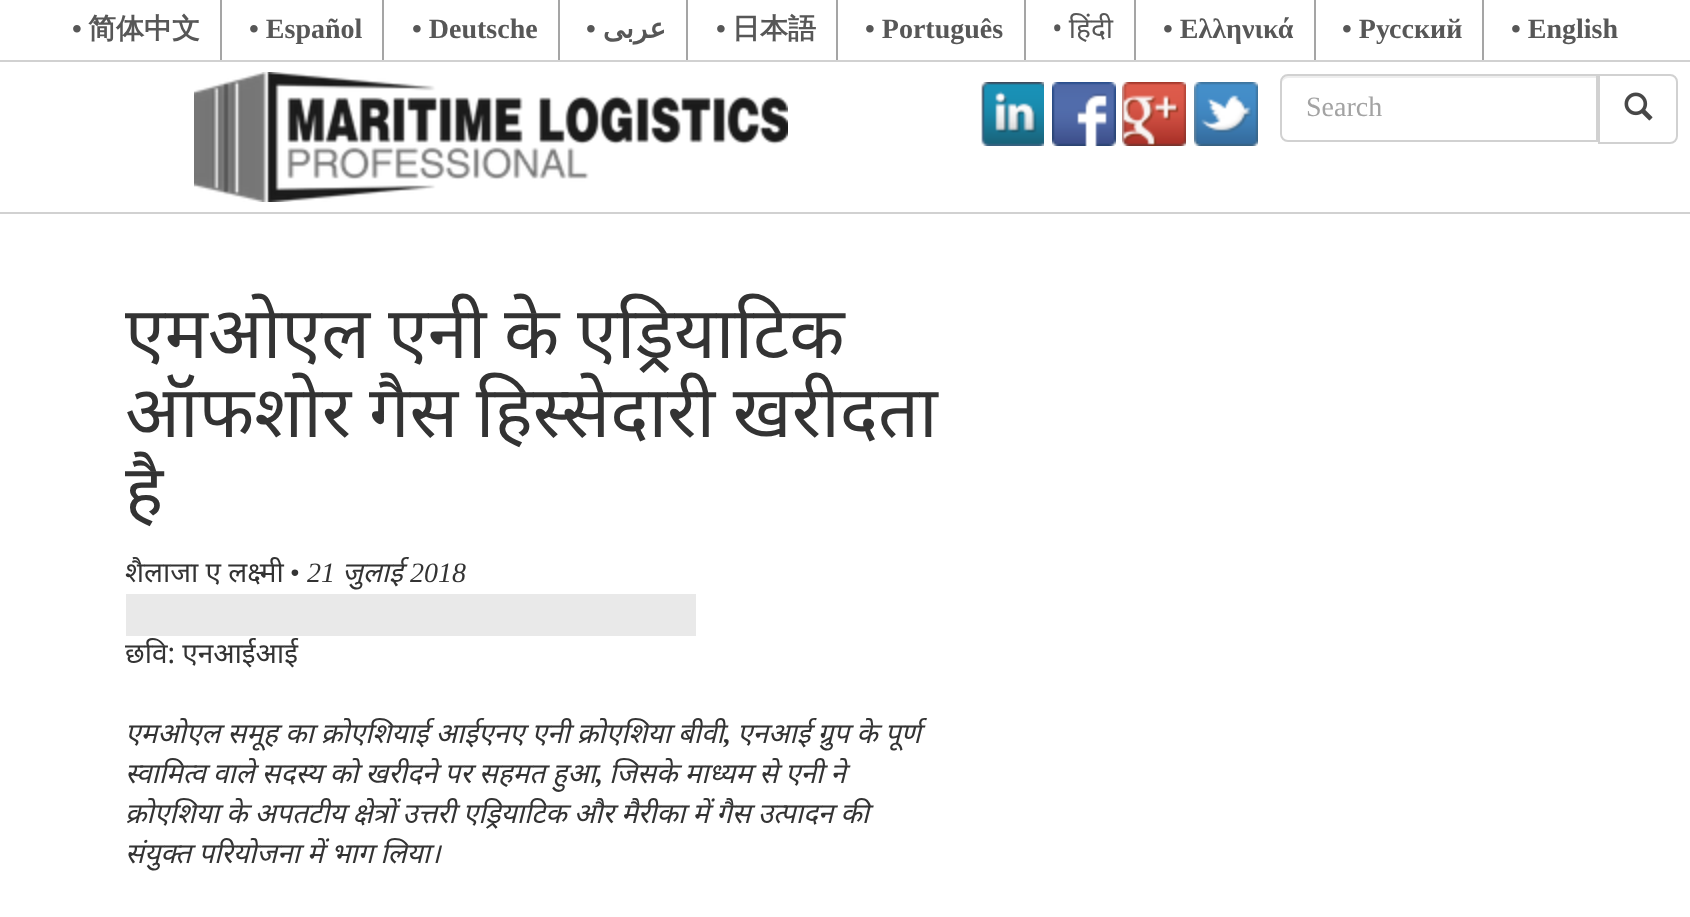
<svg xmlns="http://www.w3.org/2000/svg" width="1690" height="917">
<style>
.a{font:bold 28px Liberation Serif;fill:#575757}
.b{font:bold 28px WenQuanYi Zen Hei;fill:#575757}
.c{font:bold 28px DejaVu Sans;direction:rtl;fill:#575757}
.d{font:28px Noto Sans;fill:#575757}
.e{font:28px Liberation Serif;fill:#a3a3a3}
.f{font:72px Noto Sans;fill:#333}
.g{font:28px Noto Sans;fill:#333}
.h{font:28px Liberation Serif;fill:#333}
.i{font:italic 28px Liberation Serif;fill:#333}
.j{font:italic 28px Noto Sans;fill:#333}
.k{font:italic bold 28px Liberation Serif;fill:#333}
</style>
<rect width="100%" height="100%" fill="#fff"/>
<path fill="#d1d1d1" d="M0 212h1690v2H0z"/>
<path fill="#d1d1d1" d="M0 60h1690v2H0z"/>
<path fill="#a5a5a5" d="M220 0h2v60H220z"/>
<path fill="#a5a5a5" d="M382 0h2v60H382z"/>
<path fill="#a5a5a5" d="M558 0h2v60H558z"/>
<path fill="#a5a5a5" d="M686 0h2v60H686z"/>
<path fill="#a5a5a5" d="M836 0h2v60H836z"/>
<path fill="#a5a5a5" d="M1024 0h2v60H1024z"/>
<path fill="#a5a5a5" d="M1134 0h2v60H1134z"/>
<path fill="#a5a5a5" d="M1314 0h2v60H1314z"/>
<path fill="#a5a5a5" d="M1482 0h2v60H1482z"/>
<image href="1.png" x="194" y="72" width="594" height="130"/>
<image href="2.png" x="981" y="82" width="63" height="64"/>
<image href="3.png" x="1052" y="82" width="64" height="64"/>
<image href="4.png" x="1122" y="82" width="64" height="64"/>
<image href="5.png" x="1194" y="82" width="64" height="64"/>
<path fill="#eee" d="M1288 78h308v-2h-309c-4 1-5 5-5 8c0-3 3-6 6-6z"/>
<path fill="none" stroke="#d1d1d1" stroke-width="2" d="M1288 75h309v66h-309c-4 0-7-3-7-7v-52c0-4 3-7 7-7z"/>
<path fill="none" stroke="#d1d1d1" stroke-width="2" d="M1599 75h71c4 0 7 3 7 7v54c0 4-3 7-7 7h-71z"/>
<image href="6.png" x="1624" y="92" width="29" height="29"/>
<path fill="#e9e9e9" d="M126 594h570v42H126z"/>
<text class="a" x="72" y="38">•</text>
<text class="b" x="88" y="38">简体中文</text>
<text class="a" x="249" y="38">• Español</text>
<text class="a" x="412" y="38">• Deutsche</text>
<text class="a" x="586" y="38">•</text>
<text class="c" x="666" y="38">عربى</text>
<text class="a" x="716" y="38">•</text>
<text class="b" x="732" y="38">日本語</text>
<text class="a" x="865" y="38">• Português</text>
<text class="d" x="1052" y="38" word-spacing="-1">• हिंदी</text>
<text class="a" x="1163" y="38">• Ελληνικά</text>
<text class="a" x="1342" y="38">• Русский</text>
<text class="a" x="1511" y="38">• English</text>
<text class="e" x="1306" y="116">Search</text>
<text class="f" x="125" y="358" word-spacing="-1">एमओएल एनी के एड्रियाटिक</text>
<text class="f" x="125" y="437" word-spacing="-1">ऑफशोर गैस हिस्सेदारी खरीदता</text>
<text class="f" x="125" y="516">है</text>
<text class="g" x="125" y="582">शैलाजा ए लक्ष्मी</text>
<text class="h" x="290" y="582">•</text>
<text class="i" x="307" y="582">21</text>
<text class="j" x="342" y="582">जुलाई</text>
<text class="i" x="410" y="582">2018</text>
<text class="g" x="125" y="663">छवि: एनआईआई</text>
<text class="j" x="125" y="743" word-spacing="-0.25">एमओएल समूह का क्रोएशियाई आईएनए एनी क्रोएशिया बीवी</text>
<text class="k" x="724" y="743">,</text>
<text class="j" x="737" y="743" word-spacing="-0.25">एनआई ग्रुप के पूर्ण</text>
<text class="j" x="125" y="783" word-spacing="-0.25">स्वामित्व वाले सदस्य को खरीदने पर सहमत हुआ</text>
<text class="j" x="609" y="783" word-spacing="-0.25">जिसके माध्यम से एनी ने</text>
<text class="k" x="596" y="783">,</text>
<text class="j" x="125" y="823" word-spacing="-0.25">क्रोएशिया के अपतटीय क्षेत्रों उत्तरी एड्रियाटिक और मैरीका में गैस उत्पादन की</text>
<text class="j" x="125" y="863" word-spacing="-0.25">संयुक्त परियोजना में भाग लिया।</text>
</svg>
